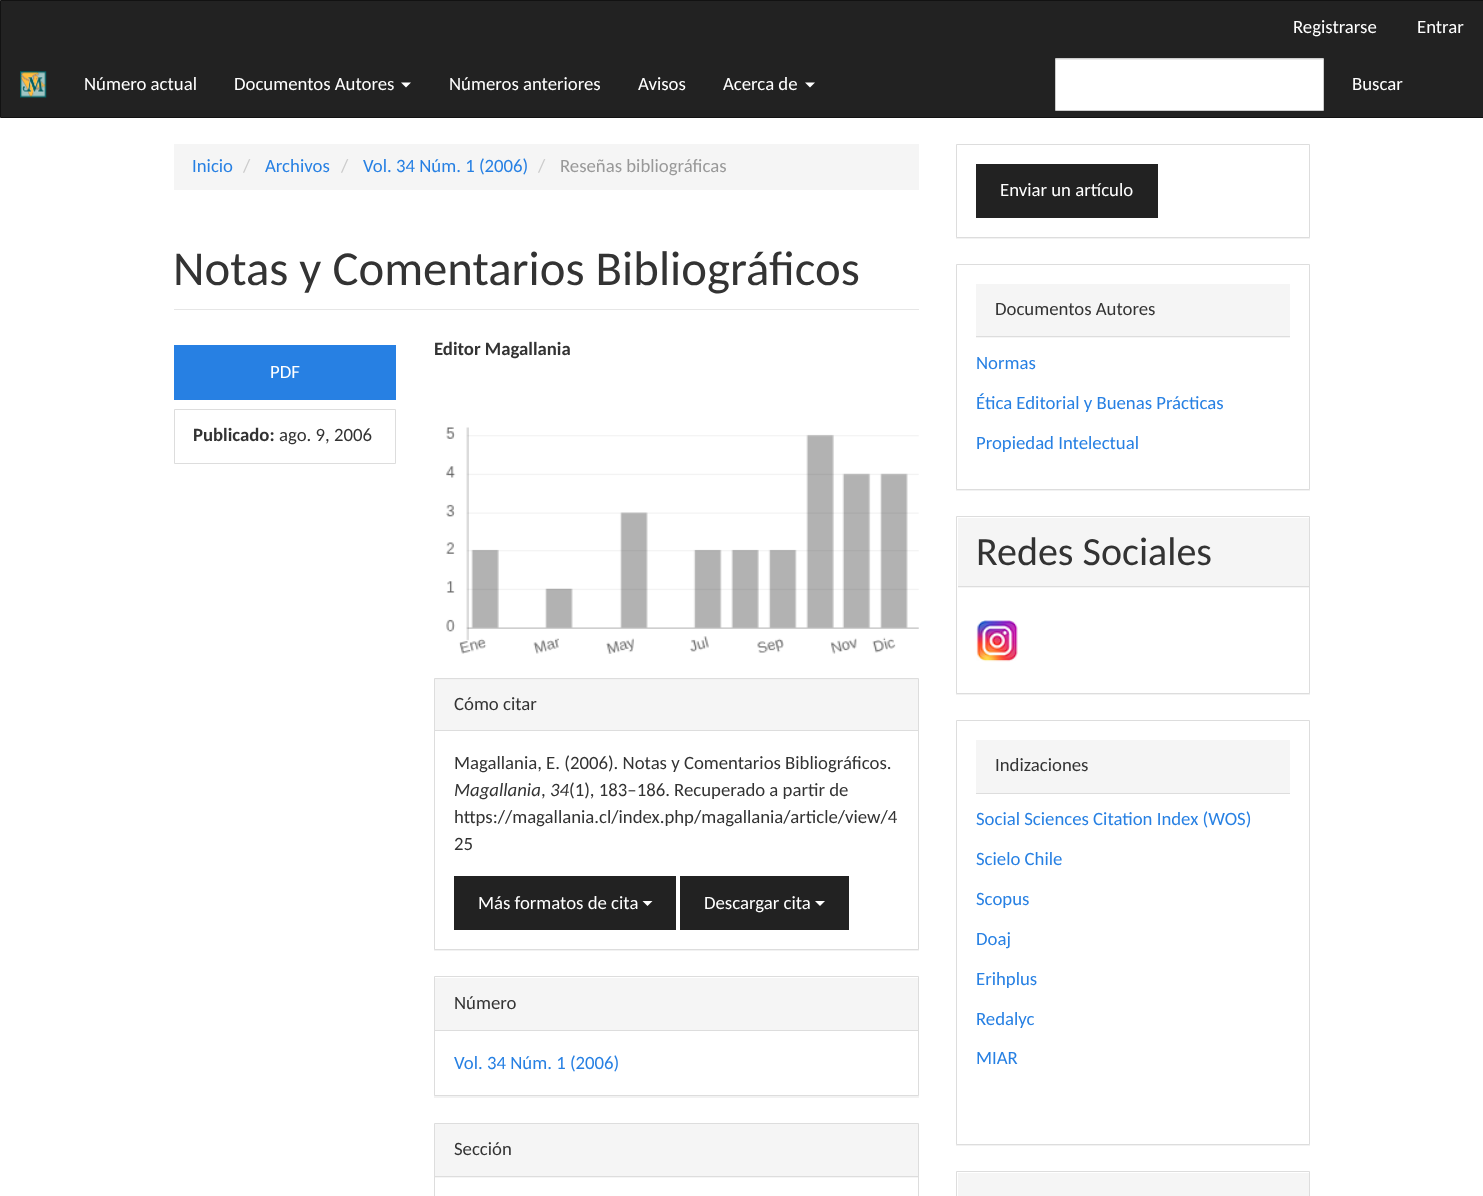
<svg xmlns="http://www.w3.org/2000/svg" width="1483" height="1196">
<style>
.a{font:18.75px Carlito;fill:#fff}
.b{font:18.75px Carlito;fill:#2780e3}
.c{font:18.75px Carlito;fill:#ccc}
.d{font:18.75px Carlito;fill:#999}
.e{font:48.75px Carlito;fill:#333}
.f{font:bold 18.75px Carlito;fill:#333}
.g{font:18.75px Carlito;fill:#333}
.h{font:italic 18.75px Carlito;fill:#333}
.i{font:40px Carlito;fill:#333}
</style>
<rect width="100%" height="100%" fill="#fff"/>
<path fill="#222" stroke="#121212" d="M0.5 0.5h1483v117H0.5z"/>
<image href="1.png" x="20" y="71" width="27" height="27"/>
<path fill="#fff" d="M401 82.5h10l-5 5z"/>
<path fill="#fff" d="M805 82.5h10l-5 5z"/>
<path fill="#fff" d="M1056 60h267v50H1056z"/>
<path fill="#ececec" d="M1056 59h267v1H1056z"/>
<path fill="none" stroke="#ccc" d="M1055.5 58.5h268v52H1055.5z"/>
<path fill="#f5f5f5" d="M174 144h745v46H174z"/>
<path fill="#e6e6e6" d="M174 309h745v1H174z"/>
<path fill="#2780e3" d="M174 345h222v55H174z"/>
<path fill="none" stroke="#ddd" d="M174.5 409.5h221v54H174.5z"/>
<image href="2.png" x="446" y="427" width="473" height="227"/>
<path fill="#0000000d" filter="blur(0.5px)" d="M434 679h485v272H434z"/>
<path fill="#fff" d="M435 731h483v218H435z"/>
<path fill="none" stroke="#ddd" d="M434.5 678.5h484v271H434.5z"/>
<path fill="#f5f5f5" d="M435 680h483v50H435z"/>
<path fill="#ddd" d="M435 730h483v1H435z"/>
<path fill="#222" d="M454 876h222v54H454z"/>
<path fill="#fff" d="M642.5 901h10l-5 5z"/>
<path fill="#222" d="M680 876h169v54H680z"/>
<path fill="#fff" d="M815 901h10l-5 5z"/>
<path fill="#0000000d" filter="blur(0.5px)" d="M434 978h485v120H434z"/>
<path fill="#fff" d="M435 978h483v117H435z"/>
<path fill="none" stroke="#ddd" d="M434.5 976.5h484v119H434.5z"/>
<path fill="#f5f5f5" d="M435 978h483v52H435z"/>
<path fill="#ddd" d="M435 1030h483v1H435z"/>
<path fill="none" stroke="#ddd" d="M434.5 1123.5h484v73H434.5z"/>
<path fill="#f5f5f5" d="M435 1124h483v54H435z"/>
<path fill="#ddd" d="M435 1176h483v1H435z"/>
<path fill="#0000000d" filter="blur(0.5px)" d="M956 145h354v94H956z"/>
<path fill="#fff" stroke="#ddd" d="M956.5 144.5h353v93H956.5z"/>
<path fill="#222" d="M976 164h182v54H976z"/>
<path fill="#0000000d" filter="blur(0.5px)" d="M956 265h354v226H956z"/>
<path fill="#fff" stroke="#ddd" d="M956.5 264.5h353v225H956.5z"/>
<path fill="#f5f5f5" d="M976 284h314v54H976z"/>
<path fill="#ddd" d="M976 336h314v1H976z"/>
<path fill="#0000000d" filter="blur(0.5px)" d="M956 518h354v177H956z"/>
<path fill="#fff" d="M957 518h352v175H957z"/>
<path fill="none" stroke="#ddd" d="M956.5 516.5h353v177H956.5z"/>
<path fill="#f5f5f5" d="M958 518h351v70H958z"/>
<path fill="#ddd" d="M958 586h351v1H958z"/>
<image href="3.png" x="976" y="620" width="42" height="42"/>
<path fill="#0000000d" filter="blur(0.5px)" d="M956 721h354v425H956z"/>
<path fill="#fff" stroke="#ddd" d="M956.5 720.5h353v424H956.5z"/>
<path fill="#f5f5f5" d="M976 740h314v53H976z"/>
<path fill="#ddd" d="M976 793h314v1H976z"/>
<path fill="none" stroke="#ddd" d="M956.5 1171.5h353v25H956.5z"/>
<path fill="#f5f5f5" d="M958 1173h351v23H958z"/>
<text class="a" x="1293" y="33">Registrarse</text>
<text class="a" x="1417" y="33">Entrar</text>
<text class="a" x="84" y="90">Número actual</text>
<text class="a" x="234" y="90">Documentos Autores</text>
<text class="a" x="449" y="90">Números anteriores</text>
<text class="a" x="638" y="90">Avisos</text>
<text class="a" x="723" y="90">Acerca de</text>
<text class="a" x="1352" y="90">Buscar</text>
<text class="b" x="192" y="172">Inicio</text>
<text class="c" x="243" y="172">/</text>
<text class="b" x="265" y="172">Archivos</text>
<text class="c" x="341" y="172">/</text>
<text class="b" x="363" y="172">Vol. 34 Núm. 1 (2006)</text>
<text class="c" x="538" y="172">/</text>
<text class="d" x="560" y="172">Reseñas bibliográficas</text>
<text class="e" x="173" y="285">Notas y Comentarios Bibliográficos</text>
<text class="a" x="270" y="378">PDF</text>
<text class="f" x="193" y="441">Publicado:</text>
<text class="g" x="279" y="441">ago. 9, 2006</text>
<text class="f" x="434" y="355">Editor Magallania</text>
<text class="g" x="454" y="710">Cómo citar</text>
<text class="g" x="454" y="769">Magallania, E. (2006). Notas y Comentarios Bibliográficos.</text>
<text class="h" x="454" y="796">Magallania</text>
<text class="g" x="541" y="796">,</text>
<text class="h" x="550" y="796">34</text>
<text class="g" x="569" y="796">(1), 183–186. Recuperado a partir de</text>
<text class="g" x="454" y="823">https://magallania.cl/index.php/magallania/article/view/4</text>
<text class="g" x="454" y="850">25</text>
<text class="a" x="478" y="909">Más formatos de cita</text>
<text class="a" x="704" y="909">Descargar cita</text>
<text class="g" x="454" y="1009">Número</text>
<text class="b" x="454" y="1069">Vol. 34 Núm. 1 (2006)</text>
<text class="g" x="454" y="1155">Sección</text>
<text class="a" x="1000" y="196">Enviar un artículo</text>
<text class="g" x="995" y="315">Documentos Autores</text>
<text class="b" x="976" y="369">Normas</text>
<text class="b" x="976" y="409">Ética Editorial y Buenas Prácticas</text>
<text class="b" x="976" y="449">Propiedad Intelectual</text>
<text class="i" x="976" y="565">Redes Sociales</text>
<text class="g" x="995" y="771">Indizaciones</text>
<text class="b" x="976" y="825">Social Sciences Citation Index (WOS)</text>
<text class="b" x="976" y="865">Scielo Chile</text>
<text class="b" x="976" y="905">Scopus</text>
<text class="b" x="976" y="945">Doaj</text>
<text class="b" x="976" y="985">Erihplus</text>
<text class="b" x="976" y="1025">Redalyc</text>
<text class="b" x="976" y="1064">MIAR</text>
</svg>
